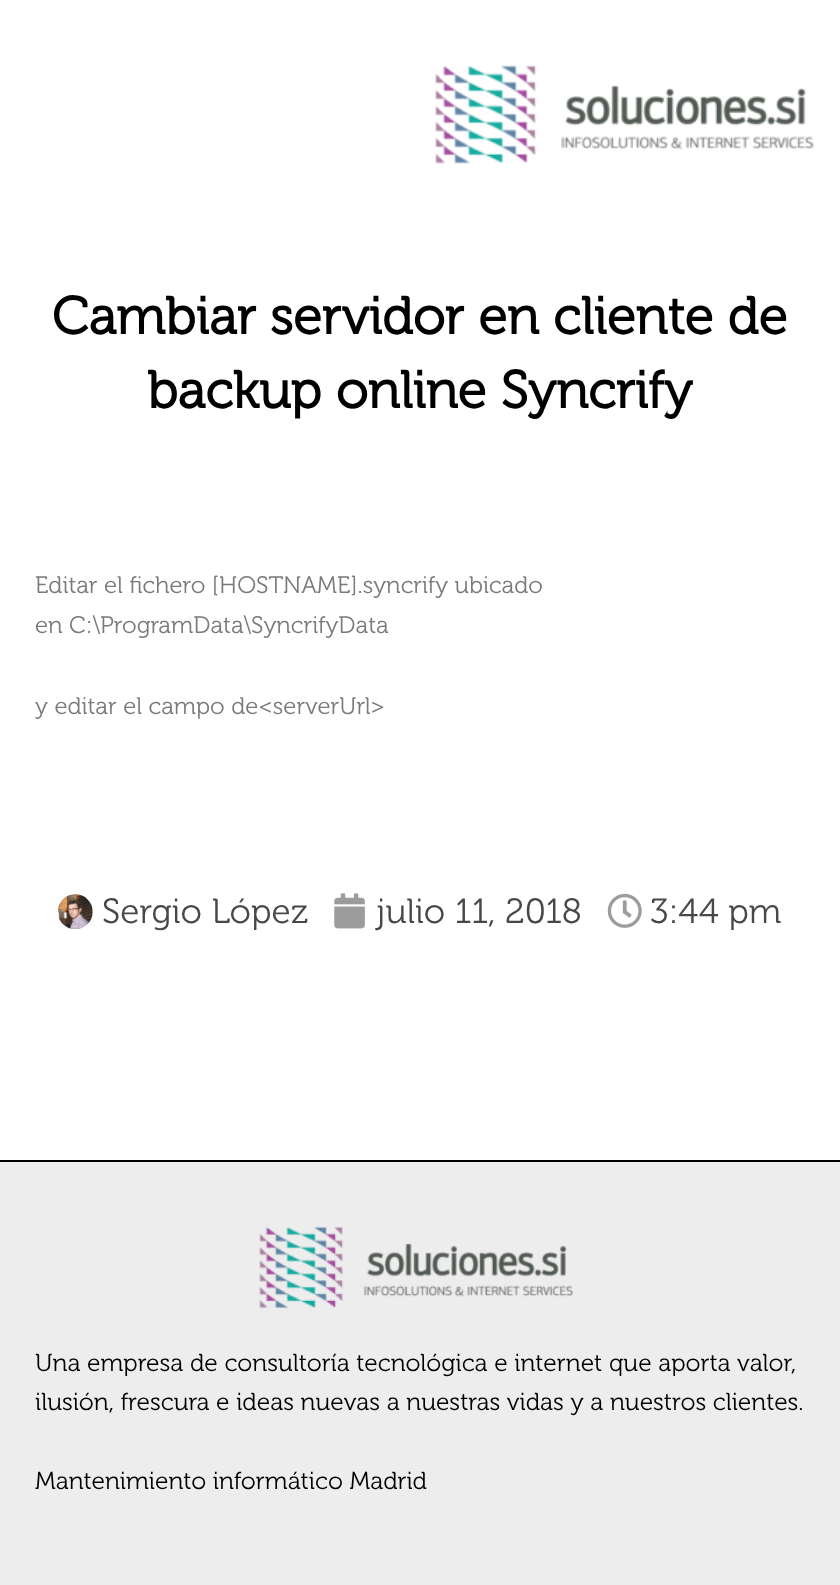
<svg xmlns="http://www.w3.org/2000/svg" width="840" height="1585">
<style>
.a{font:bold 52.5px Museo;fill:#000}
.b{font:300 23.9px Museo;fill:#7a7a7a}
.c{font:300 35px Museo;fill:#484848}
.d{font:300 24.5px Museo;fill:#000}
</style>
<rect width="100%" height="100%" fill="#fff"/>
<image href="1.png" x="435" y="65" width="379" height="99"/>
<image href="2.png" x="57" y="894" width="36" height="36"/>
<image href="3.png" x="334" y="893" width="31" height="36"/>
<image href="4.png" x="607" y="893" width="35" height="35"/>
<path fill="#ededed" d="M0 1162h840v423H0z"/>
<path fill="#000" d="M0 1160h840v2H0z"/>
<image href="5.png" x="259" y="1226" width="314" height="82"/>
<text class="a" x="52" y="334">Cambiar servidor en cliente de</text>
<text class="a" x="147" y="408">backup online Syncrify</text>
<text class="b" x="35" y="593">Editar el fichero [HOSTNAME].syncrify ubicado</text>
<text class="b" x="35" y="633">en C:\ProgramData\SyncrifyData</text>
<text class="b" x="35" y="714">y editar el campo de&lt;serverUrl&gt;</text>
<text class="c" x="102" y="923">Sergio López</text>
<text class="c" x="376" y="923">julio 11, 2018</text>
<text class="c" x="650" y="923">3:44 pm</text>
<text class="d" x="35" y="1371">Una empresa de consultoría tecnológica e internet que aporta valor,</text>
<text class="d" x="35" y="1410">ilusión, frescura e ideas nuevas a nuestras vidas y a nuestros clientes.</text>
<text class="d" x="35" y="1489">Mantenimiento informático Madrid</text>
</svg>
